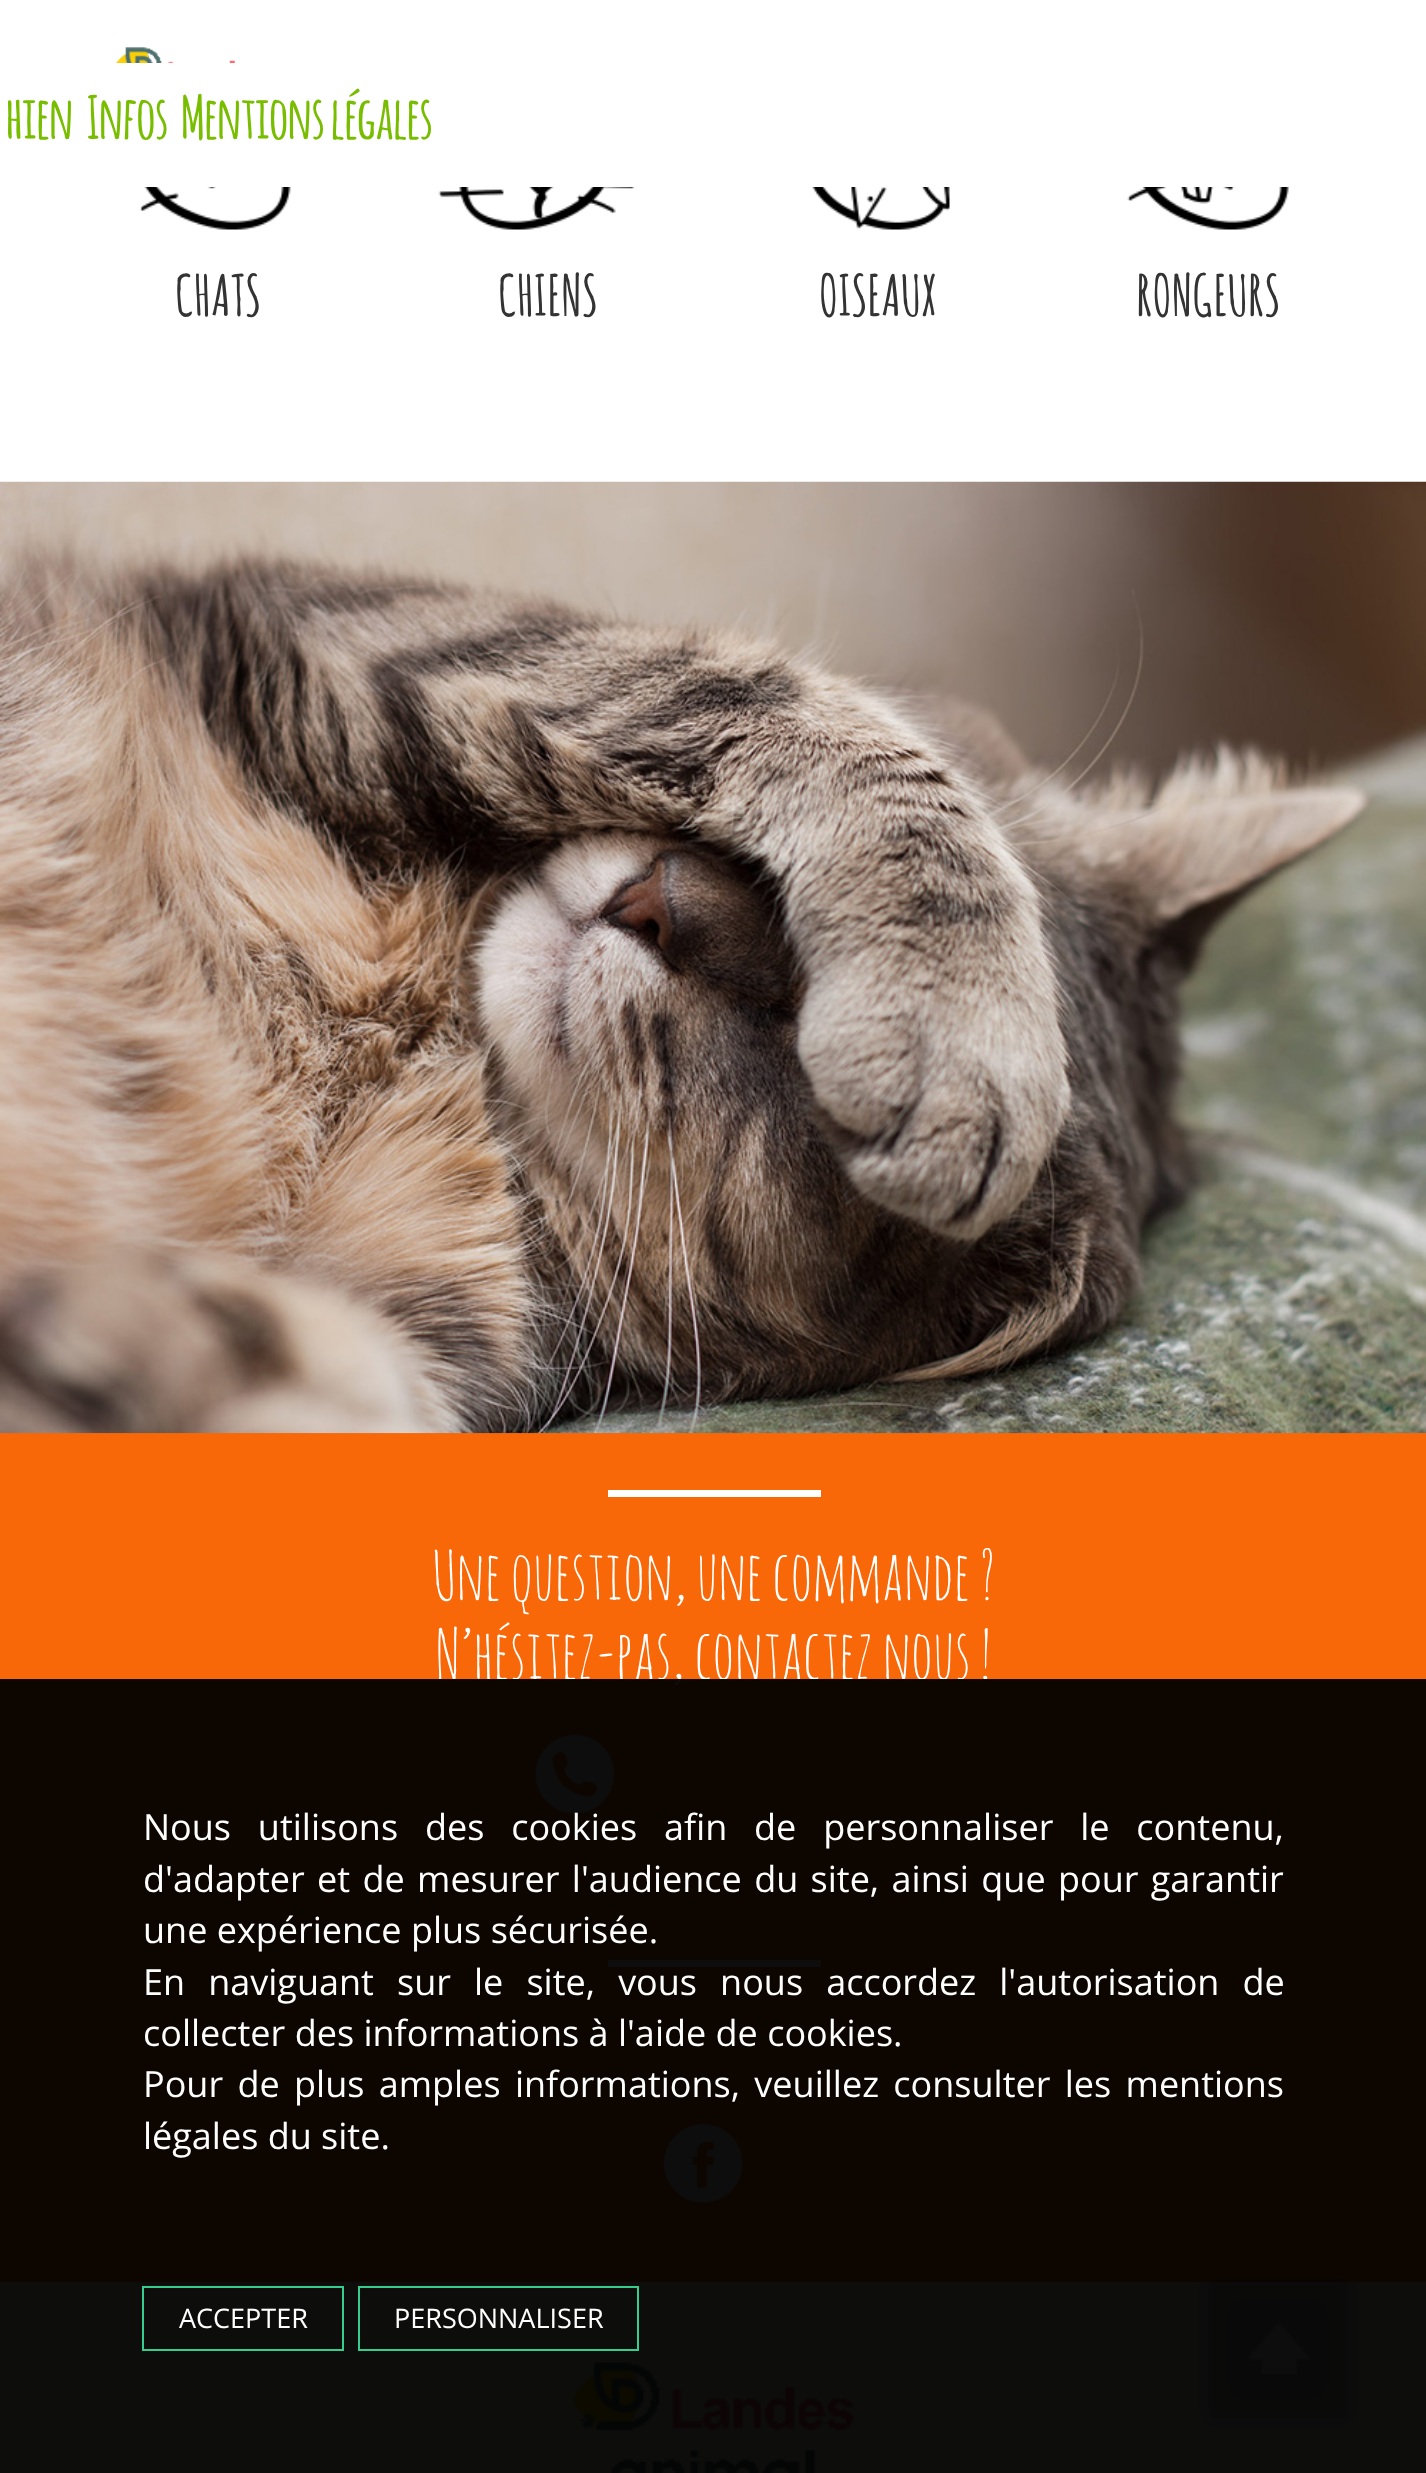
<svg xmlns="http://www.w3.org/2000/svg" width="1426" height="2473">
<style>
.a{font:bold 58.5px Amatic;fill:#78bd00}
.b{font:bold 56px Amatic SC;fill:#333}
.c{font:67.5px Amatic SC;fill:#fff}
.d{font:36px Open Sans;fill:#fff}
.e{font:27px Open Sans;fill:#fff}
</style>
<rect width="100%" height="100%" fill="#fff"/>
<image href="1.png" x="115" y="47" width="120" height="16"/>
<image href="2.png" x="139" y="187" width="152" height="43"/>
<image href="3.png" x="438" y="187" width="197" height="43"/>
<image href="4.png" x="812" y="187" width="138" height="43"/>
<image href="5.png" x="1127" y="187" width="162" height="43"/>
<path fill="#f86809" d="M0 1433h1426v849H0z"/>
<image href="6.png" x="0" y="481" width="1426" height="953"/>
<path fill="#fff" d="M608 1490h213v7H608z"/>
<image href="7.png" x="535" y="1734" width="80" height="80"/>
<path fill="#fff" d="M608 1960h213v7H608z"/>
<image href="8.png" x="663" y="2124" width="80" height="79"/>
<path fill="#fff1e7" d="M0 2282h1426v191H0z"/>
<image href="9.png" x="1199" y="2270" width="158" height="158"/>
<image href="10.png" x="573" y="2362" width="283" height="111"/>
<text class="a" x="6" y="139">hien</text>
<text class="a" x="87" y="139">Infos</text>
<text class="a" x="181" y="139">Mentions légales</text>
<text class="b" x="175" y="316">CHATS</text>
<text class="b" x="498" y="316">CHIENS</text>
<text class="b" x="819" y="316">OISEAUX</text>
<text class="b" x="1136" y="316">RONGEURS</text>
<text class="c" x="432" y="1600">Une question, une commande ?</text>
<text class="c" x="435" y="1679">N’hésitez-pas, contactez nous !</text>
<path fill="#000000f2" d="M0 1679h1426v794H0z"/>
<text class="d" x="143" y="1840" word-spacing="17.5">Nous utilisons des cookies afin de personnaliser le contenu,</text>
<text class="d" x="143" y="1892" word-spacing="3">d'adapter et de mesurer l'audience du site, ainsi que pour garantir</text>
<text class="d" x="143" y="1943">une expérience plus sécurisée.</text>
<text class="d" x="143" y="1995" word-spacing="13.75">En naviguant sur le site, vous nous accordez l'autorisation de</text>
<text class="d" x="143" y="2046">collecter des informations à l'aide de cookies.</text>
<text class="d" x="143" y="2097" word-spacing="5">Pour de plus amples informations, veuillez consulter les mentions</text>
<text class="d" x="143" y="2149">légales du site.</text>
<path fill="none" stroke="#37cd8f" stroke-width="2" d="M143 2287h200v63H143z"/>
<text class="e" x="179" y="2328">ACCEPTER</text>
<path fill="none" stroke="#37cd8f" stroke-width="2" d="M359 2287h279v63H359z"/>
<text class="e" x="394" y="2328">PERSONNALISER</text>
</svg>
